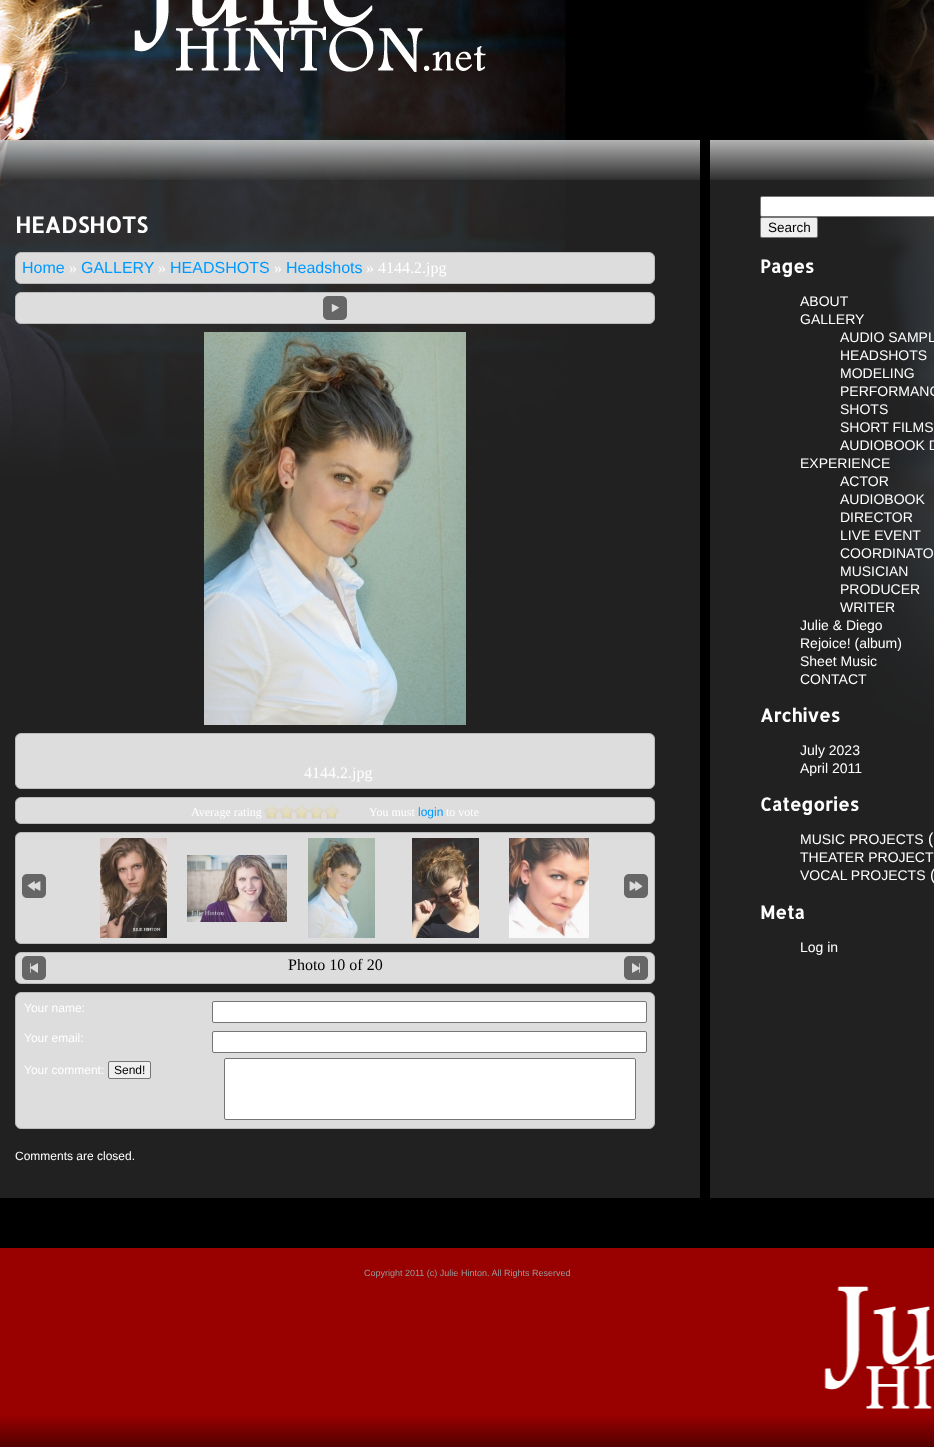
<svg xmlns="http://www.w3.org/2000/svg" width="934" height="1447">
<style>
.a{font:bold 22px Allerta;fill:#fff}
.b{font:16px Liberation Sans;fill:#09f}
.c{font:16px Liberation Serif;fill:#fff}
.d{font:12px Liberation Serif;fill:#fff}
.e{font:12px Liberation Sans;fill:#09f}
.f{font:16px Liberation Serif;fill:#000}
.g{font:12px Liberation Sans;fill:#fff}
.h{font:12px Liberation Sans;fill:#000}
.i{font:13.5px Liberation Sans;fill:#000}
.j{font:bold 18px Allerta;fill:#fff}
.k{font:14px Liberation Sans;fill:#fff}
.l{font:16px Liberation Sans;fill:#fff}
.m{font:9px Liberation Sans;fill:#999}
</style>
<rect width="100%" height="100%" fill="#000"/>
<image href="1.png" x="0" y="0" width="934" height="722"/>
<image href="2.png" x="134" y="0" width="352" height="72"/>
<image href="3.png" x="0" y="140" width="934" height="1058"/>
<image href="4.png" x="0" y="140" width="700" height="40"/>
<rect fill="#ddd" stroke="#bbb" x="15.5" y="252.5" width="639" height="31" rx="5.5"/>
<rect fill="#ddd" stroke="#bbb" x="15.5" y="292.5" width="639" height="31" rx="5.5"/>
<image href="5.png" x="323" y="296" width="24" height="24"/>
<image href="6.png" x="204" y="332" width="262" height="393"/>
<rect fill="#ddd" stroke="#bbb" x="15.5" y="733.5" width="639" height="55" rx="5.5"/>
<rect fill="#ddd" stroke="#bbb" x="15.5" y="797.5" width="639" height="26" rx="5.5"/>
<image href="7.png" x="264" y="805" width="15" height="14"/>
<image href="8.png" x="279" y="805" width="15" height="14"/>
<image href="8.png" x="294" y="805" width="15" height="14"/>
<image href="7.png" x="309" y="805" width="15" height="14"/>
<image href="8.png" x="324" y="805" width="15" height="14"/>
<rect fill="#ddd" stroke="#bbb" x="15.5" y="832.5" width="639" height="111" rx="5.5"/>
<image href="9.png" x="22" y="874" width="24" height="24"/>
<image href="10.png" x="100" y="838" width="67" height="100"/>
<image href="11.png" x="187" y="855" width="100" height="67"/>
<image href="12.png" x="308" y="838" width="67" height="100"/>
<image href="13.png" x="412" y="838" width="67" height="100"/>
<image href="14.png" x="509" y="838" width="80" height="100"/>
<image href="15.png" x="624" y="874" width="24" height="24"/>
<rect fill="#ddd" stroke="#bbb" x="15.5" y="952.5" width="639" height="31" rx="5.5"/>
<image href="16.png" x="22" y="956" width="24" height="24"/>
<image href="17.png" x="624" y="956" width="24" height="24"/>
<rect fill="#ddd" stroke="#bbb" x="15.5" y="992.5" width="639" height="136" rx="5.5"/>
<rect fill="#fff" stroke="#767676" x="212.5" y="1001.5" width="434" height="21" rx="1.5"/>
<rect fill="#fff" stroke="#767676" x="212.5" y="1031.5" width="434" height="21" rx="1.5"/>
<rect fill="#efefef" stroke="#767676" x="108.5" y="1061.5" width="42" height="17" rx="1.5"/>
<rect fill="#fff" stroke="#767676" x="224.5" y="1058.5" width="411" height="61" rx="1.5"/>
<image href="18.png" x="710" y="140" width="224" height="40"/>
<rect fill="#fff" stroke="#767676" x="760.5" y="196.5" width="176" height="20" rx="1.5"/>
<rect fill="#efefef" stroke="#767676" x="760.5" y="217.5" width="57" height="20" rx="1.5"/>
<image href="19.png" x="0" y="1248" width="934" height="199"/>
<text class="a" x="15" y="233">HEADSHOTS</text>
<text class="b" x="22" y="273">Home</text>
<text class="c" x="69" y="273">»</text>
<text class="b" x="81" y="273">GALLERY</text>
<text class="c" x="158" y="273">»</text>
<text class="b" x="170" y="273">HEADSHOTS</text>
<text class="c" x="274" y="273">»</text>
<text class="b" x="286" y="273">Headshots</text>
<text class="c" x="366" y="273">» 4144.2.jpg</text>
<text class="c" x="304" y="778">4144.2.jpg</text>
<text class="d" x="191" y="816">Average rating</text>
<text class="d" x="369" y="816">You must</text>
<text class="e" x="418" y="816">login</text>
<text class="d" x="446" y="816">to vote</text>
<text class="f" x="288" y="970">Photo 10 of 20</text>
<text class="g" x="24" y="1012">Your name:</text>
<text class="g" x="24" y="1042">Your email:</text>
<text class="g" x="24" y="1074">Your comment:</text>
<text class="h" x="114" y="1074">Send!</text>
<text class="g" x="15" y="1160">Comments are closed.</text>
<text class="i" x="768" y="232">Search</text>
<text class="j" x="760" y="273">Pages</text>
<text class="k" x="800" y="306">ABOUT</text>
<text class="k" x="800" y="324">GALLERY</text>
<text class="k" x="840" y="342">AUDIO SAMPL</text>
<text class="k" x="840" y="360">HEADSHOTS</text>
<text class="k" x="840" y="378">MODELING</text>
<text class="k" x="840" y="396">PERFORMANC</text>
<text class="k" x="840" y="414">SHOTS</text>
<text class="k" x="840" y="432">SHORT FILMS</text>
<text class="k" x="840" y="450">AUDIOBOOK D</text>
<text class="k" x="800" y="468">EXPERIENCE</text>
<text class="k" x="840" y="486">ACTOR</text>
<text class="k" x="840" y="504">AUDIOBOOK</text>
<text class="k" x="840" y="522">DIRECTOR</text>
<text class="k" x="840" y="540">LIVE EVENT</text>
<text class="k" x="840" y="558">COORDINATO</text>
<text class="k" x="840" y="576">MUSICIAN</text>
<text class="k" x="840" y="594">PRODUCER</text>
<text class="k" x="840" y="612">WRITER</text>
<text class="k" x="800" y="630">Julie &amp; Diego</text>
<text class="k" x="800" y="648">Rejoice! (album)</text>
<text class="k" x="800" y="666">Sheet Music</text>
<text class="k" x="800" y="684">CONTACT</text>
<text class="j" x="760" y="722">Archives</text>
<text class="k" x="800" y="755">July 2023</text>
<text class="k" x="800" y="773">April 2011</text>
<text class="j" x="760" y="811">Categories</text>
<text class="k" x="800" y="844">MUSIC PROJECTS</text>
<text class="l" x="928" y="844">(</text>
<text class="k" x="800" y="862">THEATER PROJECT</text>
<text class="k" x="800" y="880">VOCAL PROJECTS</text>
<text class="l" x="930" y="880">(</text>
<text class="j" x="760" y="919">Meta</text>
<text class="k" x="800" y="952">Log in</text>
<text class="m" x="364" y="1276">Copyright 2011 (c) Julie Hinton. All Rights Reserved</text>
</svg>
